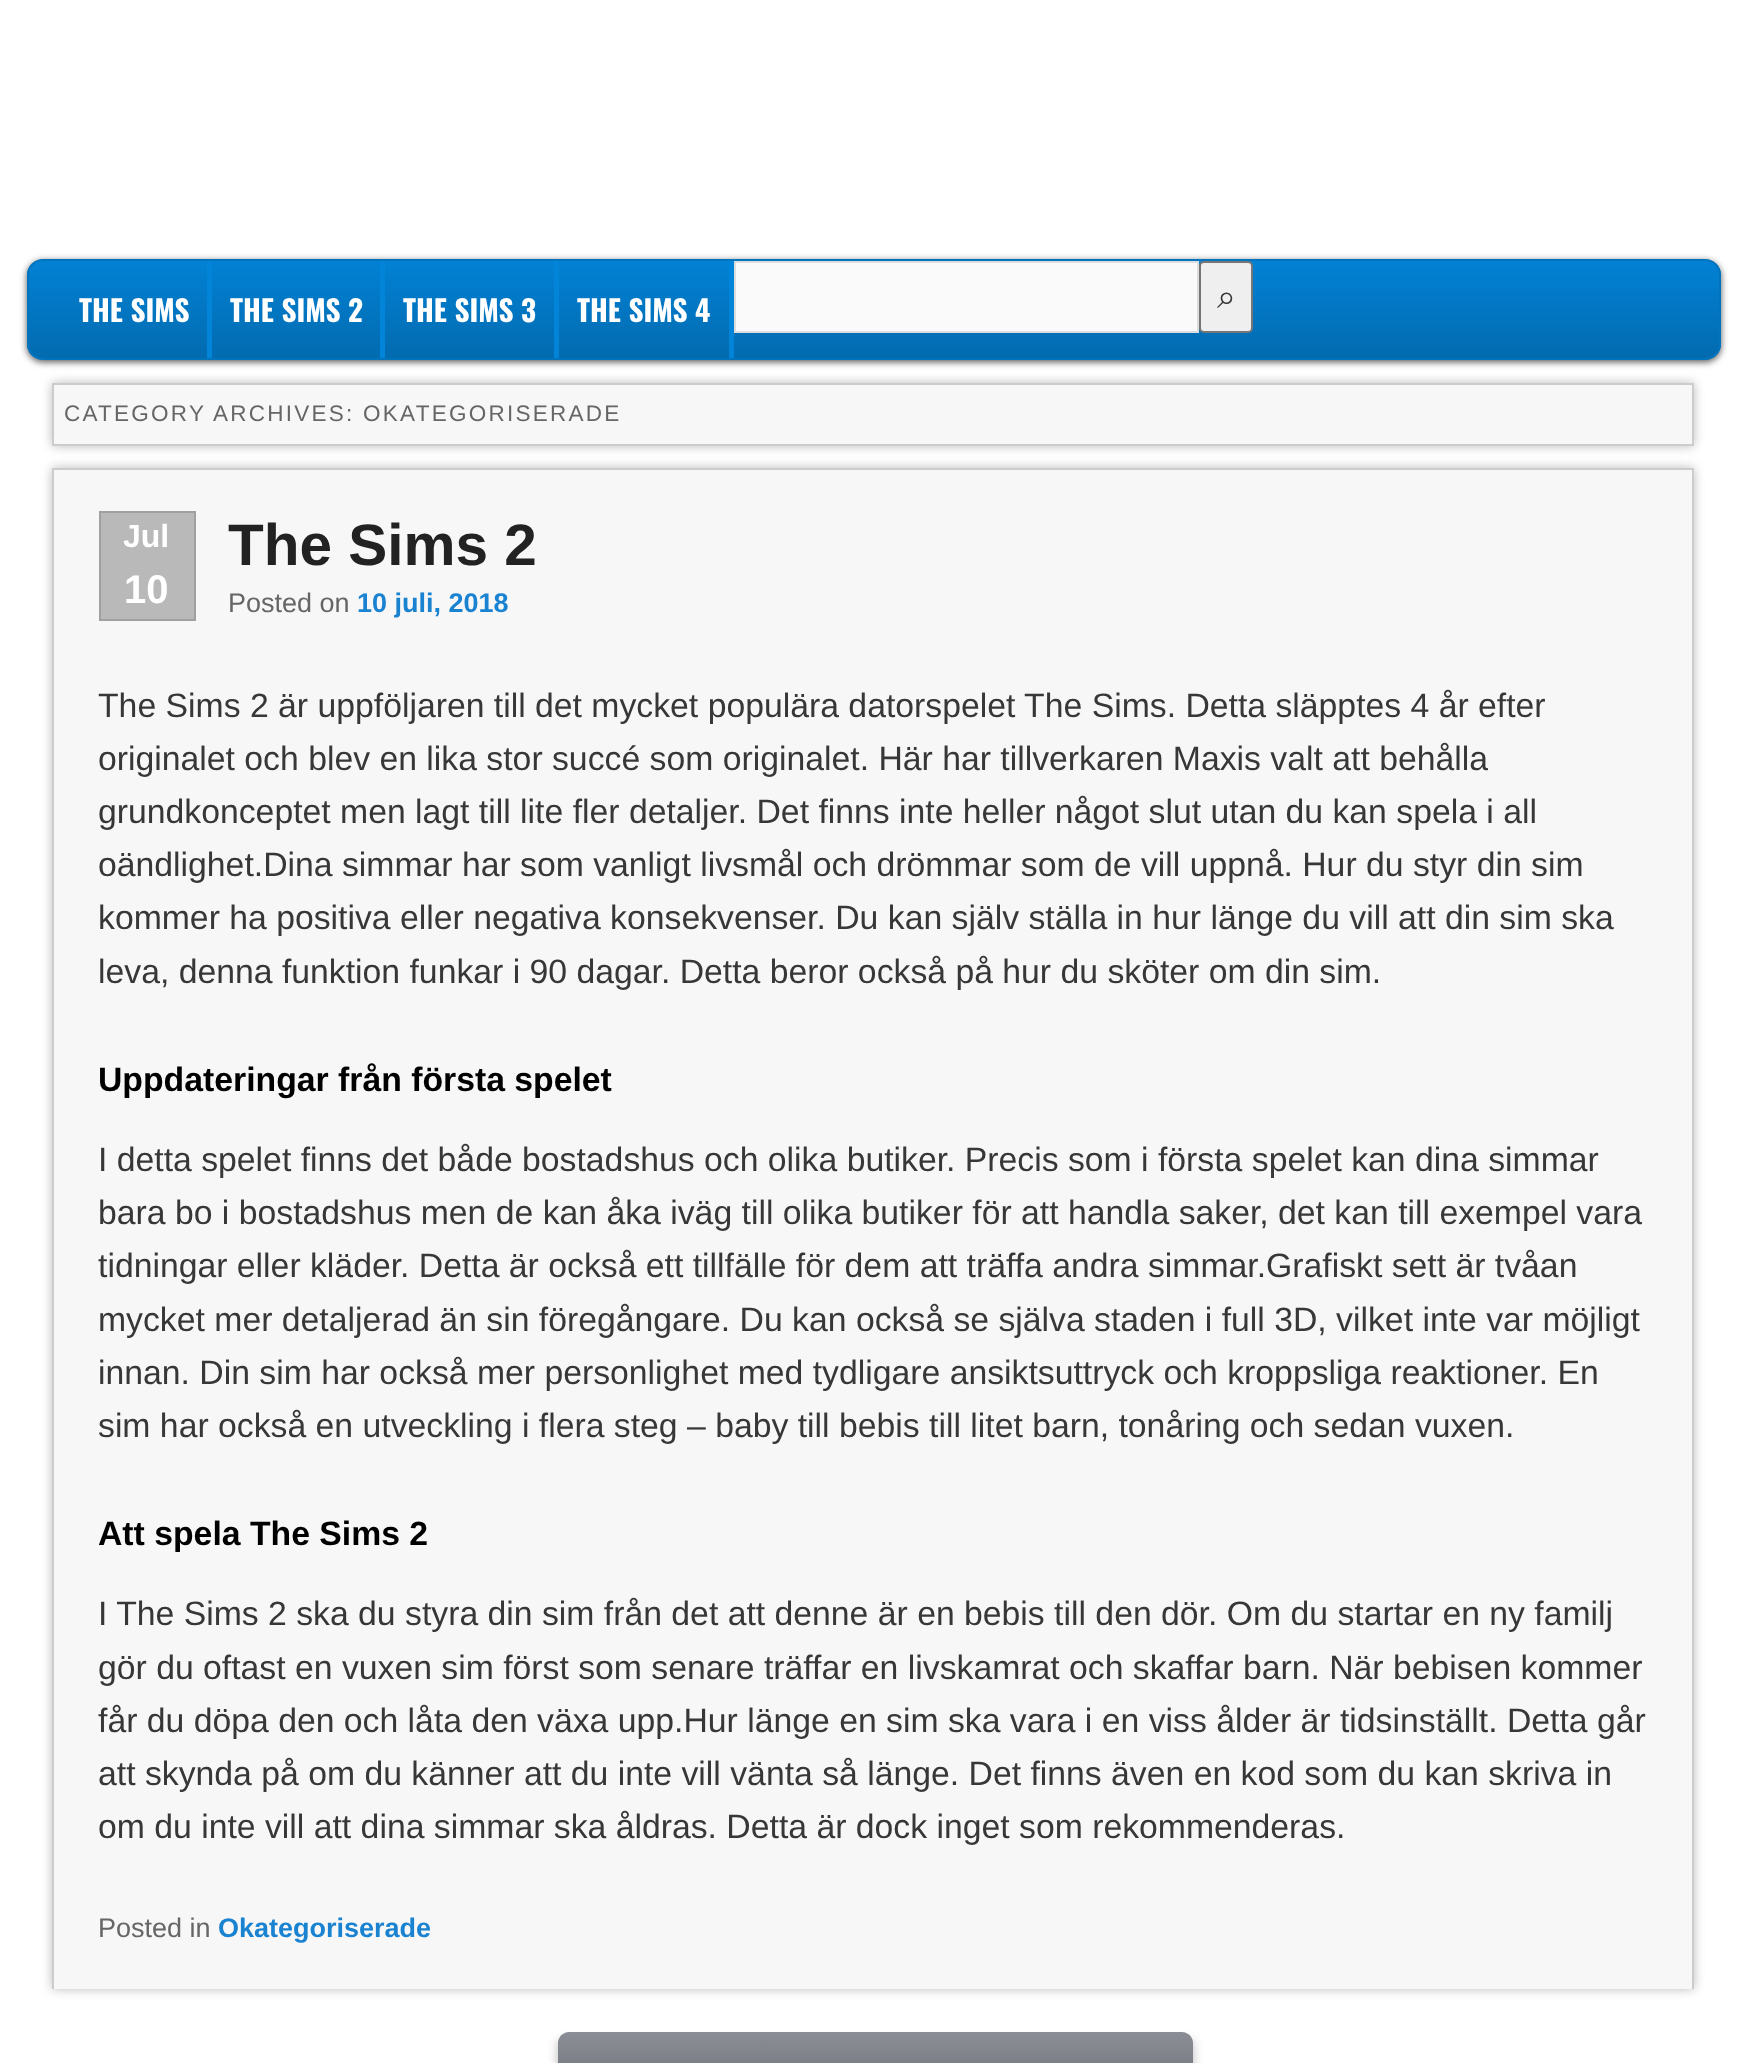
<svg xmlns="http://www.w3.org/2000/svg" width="1743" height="2063">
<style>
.a{font:bold 29.25px Oswald;fill:#fff}
.b{font:33.75px FreeSerif;fill:#373737}
.c{font:22.5px Liberation Sans;letter-spacing:2.25px;fill:#666}
.d{font:bold 32px Liberation Sans;fill:#fff}
.e{font:bold 40px Liberation Sans;fill:#fff}
.f{font:bold 58.5px Liberation Sans;fill:#222}
.g{font:27px Liberation Sans;fill:#666}
.h{font:bold 27px Liberation Sans;fill:#1982d1}
.i{font:33.75px Liberation Sans;fill:#373737}
.j{font:bold 33.75px Liberation Sans;fill:#000}
</style>
<defs>
<clipPath id="clip1"><rect x="27" y="259" width="1694" height="101" rx="16"/></clipPath>
<linearGradient id="g1" gradientUnits="userSpaceOnUse" x1="874" y1="261" x2="874" y2="358"><stop offset="0" stop-color="#0281d4"/><stop offset="1" stop-color="#026bb0"/></linearGradient>
<linearGradient id="g2" gradientUnits="userSpaceOnUse" x1="875" y1="2032" x2="875" y2="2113"><stop offset="0" stop-color="#8b8e96"/><stop offset="1" stop-color="#66686e"/></linearGradient>
</defs>
<rect width="100%" height="100%" fill="#fff"/>
<rect fill="#555" filter="blur(3.5px)" x="27" y="261" width="1694" height="101" rx="16"/>
<g clip-path="url(#clip1)">
<path fill="url(#g1)" d="M27 261h1694v97H27z"/>
</g>
<rect fill="none" stroke="#0274be" stroke-width="2" x="28" y="260" width="1692" height="99" rx="15"/>
<path fill="#0284d9" d="M207 261h5v97H207z"/>
<path fill="#0284d9" d="M380 261h5v97H380z"/>
<path fill="#0284d9" d="M554 261h5v97H554z"/>
<path fill="#0284d9" d="M729 261h5v97H729z"/>
<path fill="#fafafa" stroke="#ddd" stroke-width="2" d="M735 262h463v70H735z"/>
<rect fill="#efefef" stroke="#767676" stroke-width="2" x="1200" y="262" width="52" height="70" rx="4"/>
<path fill="#bbb" filter="blur(5.5px)" d="M52 383h1642v63H52z"/>
<path fill="#f7f7f7" stroke="#ccc" stroke-width="2" d="M53 384h1640v61H53z"/>
<path fill="#bbb" filter="blur(5.5px)" d="M52 468h1642v1521H52z"/>
<path fill="#f7f7f7" d="M54 470h1638v1519H54z"/>
<path fill="#ccc" d="M52 468h1642v2H52z"/>
<path fill="#ccc" d="M1692 468h2v1521H1692z"/>
<path fill="#ccc" d="M52 468h2v1521H52z"/>
<path fill="#b9b9b9" stroke="#a0a0a0" stroke-width="2" d="M100 512h95v108H100z"/>
<path fill="#bbb" filter="blur(5.5px)" d="M558 2041h635v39H558z"/>
<path fill="none" stroke="#ccc" stroke-width="2" d="M559 2042h633v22H559z"/>
<path fill="url(#g2)" d="M569 2032h613c6 0 11 5 11 11v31h-635v-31c0-6 5-11 11-11z"/>
<text class="a" x="79" y="322">THE SIMS</text>
<text class="a" x="230" y="322">THE SIMS 2</text>
<text class="a" x="403" y="322">THE SIMS 3</text>
<text class="a" x="577" y="322">THE SIMS 4</text>
<text class="b" x="1217" y="308">⌕</text>
<text class="c" x="64" y="421">CATEGORY ARCHIVES: OKATEGORISERADE</text>
<text class="d" x="123" y="547">Jul</text>
<text class="e" x="124" y="603">10</text>
<text class="f" x="228" y="565">The Sims 2</text>
<text class="g" x="228" y="612">Posted on</text>
<text class="h" x="357" y="612">10 juli, 2018</text>
<text class="i" x="98" y="717">The Sims 2 är uppföljaren till det mycket populära datorspelet The Sims. Detta släpptes 4 år efter</text>
<text class="i" x="98" y="770">originalet och blev en lika stor succé som originalet. Här har tillverkaren Maxis valt att behålla</text>
<text class="i" x="98" y="823">grundkonceptet men lagt till lite fler detaljer. Det finns inte heller något slut utan du kan spela i all</text>
<text class="i" x="98" y="876">oändlighet.Dina simmar har som vanligt livsmål och drömmar som de vill uppnå. Hur du styr din sim</text>
<text class="i" x="98" y="929">kommer ha positiva eller negativa konsekvenser. Du kan själv ställa in hur länge du vill att din sim ska</text>
<text class="i" x="98" y="983">leva, denna funktion funkar i 90 dagar. Detta beror också på hur du sköter om din sim.</text>
<text class="j" x="98" y="1091">Uppdateringar från första spelet</text>
<text class="i" x="98" y="1171">I detta spelet finns det både bostadshus och olika butiker. Precis som i första spelet kan dina simmar</text>
<text class="i" x="98" y="1224">bara bo i bostadshus men de kan åka iväg till olika butiker för att handla saker, det kan till exempel vara</text>
<text class="i" x="98" y="1277">tidningar eller kläder. Detta är också ett tillfälle för dem att träffa andra simmar.Grafiskt sett är tvåan</text>
<text class="i" x="98" y="1331">mycket mer detaljerad än sin föregångare. Du kan också se själva staden i full 3D, vilket inte var möjligt</text>
<text class="i" x="98" y="1384">innan. Din sim har också mer personlighet med tydligare ansiktsuttryck och kroppsliga reaktioner. En</text>
<text class="i" x="98" y="1437">sim har också en utveckling i flera steg – baby till bebis till litet barn, tonåring och sedan vuxen.</text>
<text class="j" x="98" y="1545">Att spela The Sims 2</text>
<text class="i" x="98" y="1625">I The Sims 2 ska du styra din sim från det att denne är en bebis till den dör. Om du startar en ny familj</text>
<text class="i" x="98" y="1679">gör du oftast en vuxen sim först som senare träffar en livskamrat och skaffar barn. När bebisen kommer</text>
<text class="i" x="98" y="1732">får du döpa den och låta den växa upp.Hur länge en sim ska vara i en viss ålder är tidsinställt. Detta går</text>
<text class="i" x="98" y="1785">att skynda på om du känner att du inte vill vänta så länge. Det finns även en kod som du kan skriva in</text>
<text class="i" x="98" y="1838">om du inte vill att dina simmar ska åldras. Detta är dock inget som rekommenderas.</text>
<text class="g" x="98" y="1937">Posted in</text>
<text class="h" x="218" y="1937">Okategoriserade</text>
</svg>
